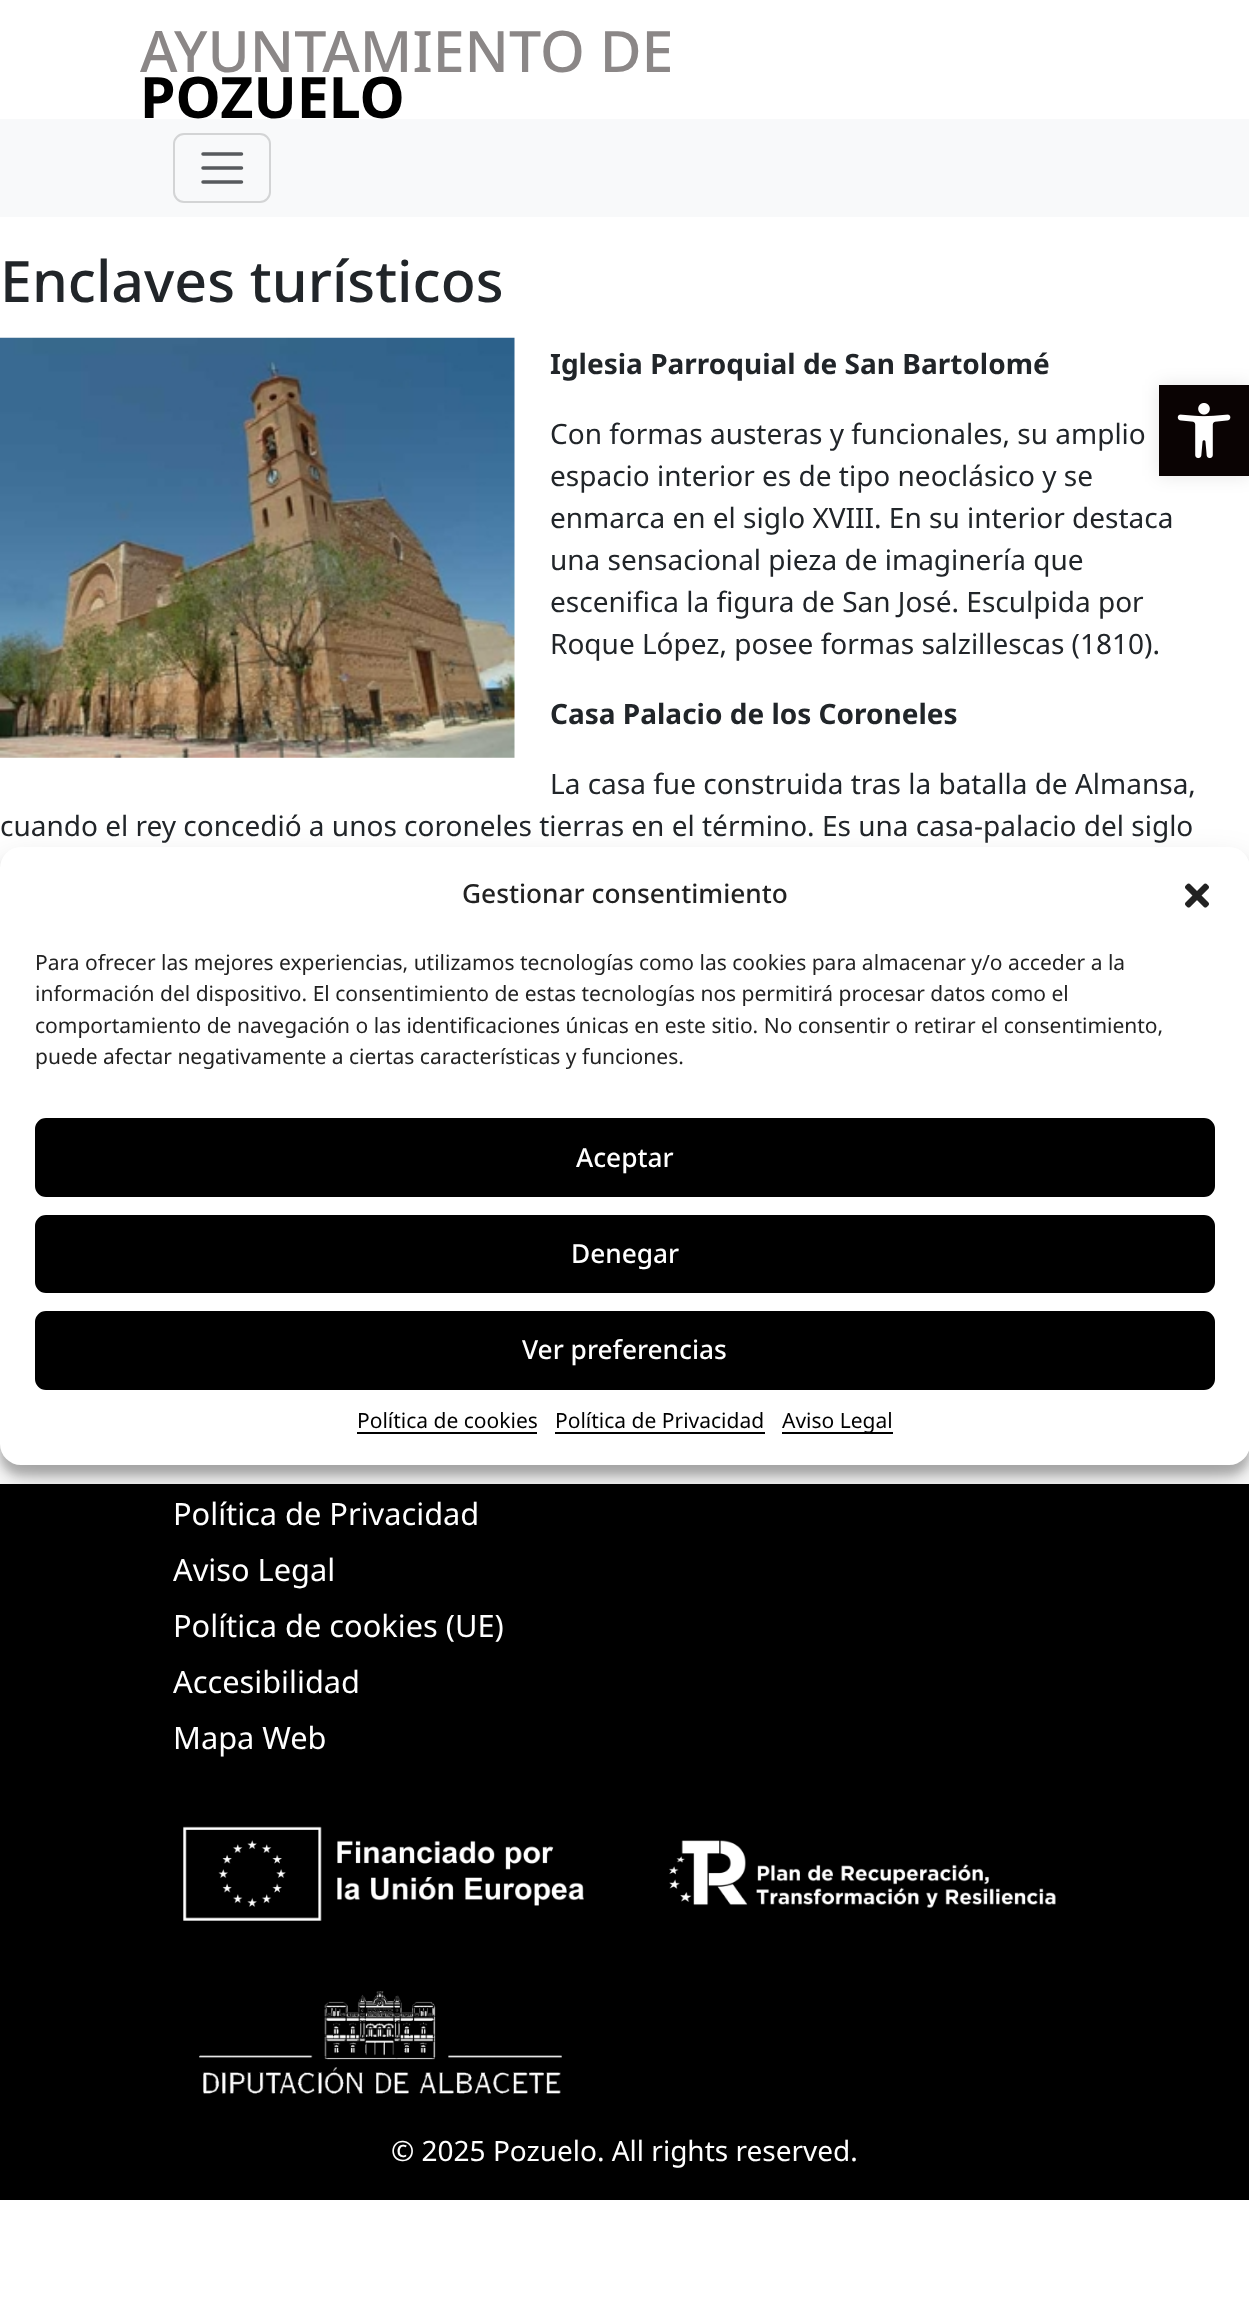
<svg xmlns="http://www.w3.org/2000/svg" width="1249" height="2309">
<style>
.a{font:500 57.25px Noto Sans;fill:#8b8787}
.b{font:bold 57.25px Noto Sans;fill:#000}
.c{font:500 57.25px Noto Sans;fill:#212529}
.d{font:bold 28px Noto Sans;fill:#212529}
.e{font:28px Noto Sans;fill:#212529}
.f{font:30.75px Noto Sans;fill:#fff}
.g{font:28px Noto Sans;fill:#fff}
.h{font:500 26.25px Noto Sans;fill:#222}
.i{font:21px Noto Sans;fill:#222}
.j{font:500 26.25px Noto Sans;fill:#fff}
.k{font:21px Noto Sans;fill:#000}
</style>
<rect width="100%" height="100%" fill="#fff"/>
<path fill="#f8f9fa" d="M0 119h1249v98H0z"/>
<rect fill="none" stroke="#d3d4d5" stroke-width="2" x="174" y="134" width="96" height="68" rx="10"/>
<path fill="none" stroke="#575a5d" stroke-width="3.5" stroke-linecap="round" d="M203 154h38.5m-38.5 14h38.5m-38.5 14h38.5"/>
<image href="1.png" x="0" y="337" width="515" height="421"/>
<path fill="#000" d="M0 1484h1249v716H0z"/>
<image href="2.png" x="183" y="1826" width="401" height="95"/>
<image href="3.png" x="669" y="1840" width="387" height="68"/>
<image href="4.png" x="199" y="1991" width="363" height="103"/>
<path fill="#0000001a" filter="blur(9px)" d="M1159 385h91v91H1159z"/>
<path fill="#0a0303" d="M1159 385h90v91H1159z"/>
<image href="5.png" x="1177" y="403" width="54" height="56"/>
<rect fill="#0000003b" filter="blur(5px)" y="858" width="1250" height="617" rx="21"/>
<rect fill="#00000030" filter="blur(17.5px)" y="865" width="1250" height="617" rx="21"/>
<rect fill="#fff" y="847" width="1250" height="618" rx="21"/>
<image href="6.png" x="1185" y="883" width="24" height="25"/>
<rect fill="#000" stroke="#000" stroke-width="2" x="36" y="1119" width="1178" height="77" rx="10"/>
<rect fill="#000" stroke="#000" stroke-width="2" x="36" y="1216" width="1178" height="76" rx="10"/>
<rect fill="#000" stroke="#000" stroke-width="2" x="36" y="1312" width="1178" height="77" rx="10"/>
<path fill="#000" d="M357 1432h180v2H357z"/>
<path fill="#000" d="M555 1432h210v2H555z"/>
<path fill="#000" d="M782 1432h111v2H782z"/>
<text class="a" x="140" y="72">AYUNTAMIENTO DE</text>
<text class="b" x="140" y="118">POZUELO</text>
<text class="c" x="0" y="302">Enclaves turísticos</text>
<text class="d" x="550" y="374">Iglesia Parroquial de San Bartolomé</text>
<text class="e" x="550" y="444">Con formas austeras y funcionales, su amplio</text>
<text class="e" x="550" y="486">espacio interior es de tipo neoclásico y se</text>
<text class="e" x="550" y="528">enmarca en el siglo XVIII. En su interior destaca</text>
<text class="e" x="550" y="570">una sensacional pieza de imaginería que</text>
<text class="e" x="550" y="612">escenifica la figura de San José. Esculpida por</text>
<text class="e" x="550" y="654">Roque López, posee formas salzillescas (1810).</text>
<text class="d" x="550" y="724">Casa Palacio de los Coroneles</text>
<text class="e" x="550" y="794">La casa fue construida tras la batalla de Almansa,</text>
<text class="e" x="0" y="836">cuando el rey concedió a unos coroneles tierras en el término. Es una casa-palacio del siglo</text>
<text class="f" x="173" y="1525">Política de Privacidad</text>
<text class="f" x="173" y="1581">Aviso Legal</text>
<text class="f" x="173" y="1637">Política de cookies (UE)</text>
<text class="f" x="173" y="1693">Accesibilidad</text>
<text class="f" x="173" y="1749">Mapa Web</text>
<text class="g" x="391" y="2161">© 2025 Pozuelo. All rights reserved.</text>
<text class="h" x="462" y="903">Gestionar consentimiento</text>
<text class="i" x="35" y="970">Para ofrecer las mejores experiencias, utilizamos tecnologías como las cookies para almacenar y/o acceder a la</text>
<text class="i" x="35" y="1001">información del dispositivo. El consentimiento de estas tecnologías nos permitirá procesar datos como el</text>
<text class="i" x="35" y="1033">comportamiento de navegación o las identificaciones únicas en este sitio. No consentir o retirar el consentimiento,</text>
<text class="i" x="35" y="1064">puede afectar negativamente a ciertas características y funciones.</text>
<text class="j" x="576" y="1167">Aceptar</text>
<text class="j" x="571" y="1263">Denegar</text>
<text class="j" x="522" y="1359">Ver preferencias</text>
<text class="k" x="357" y="1428">Política de cookies</text>
<text class="k" x="555" y="1428">Política de Privacidad</text>
<text class="k" x="782" y="1428">Aviso Legal</text>
</svg>
